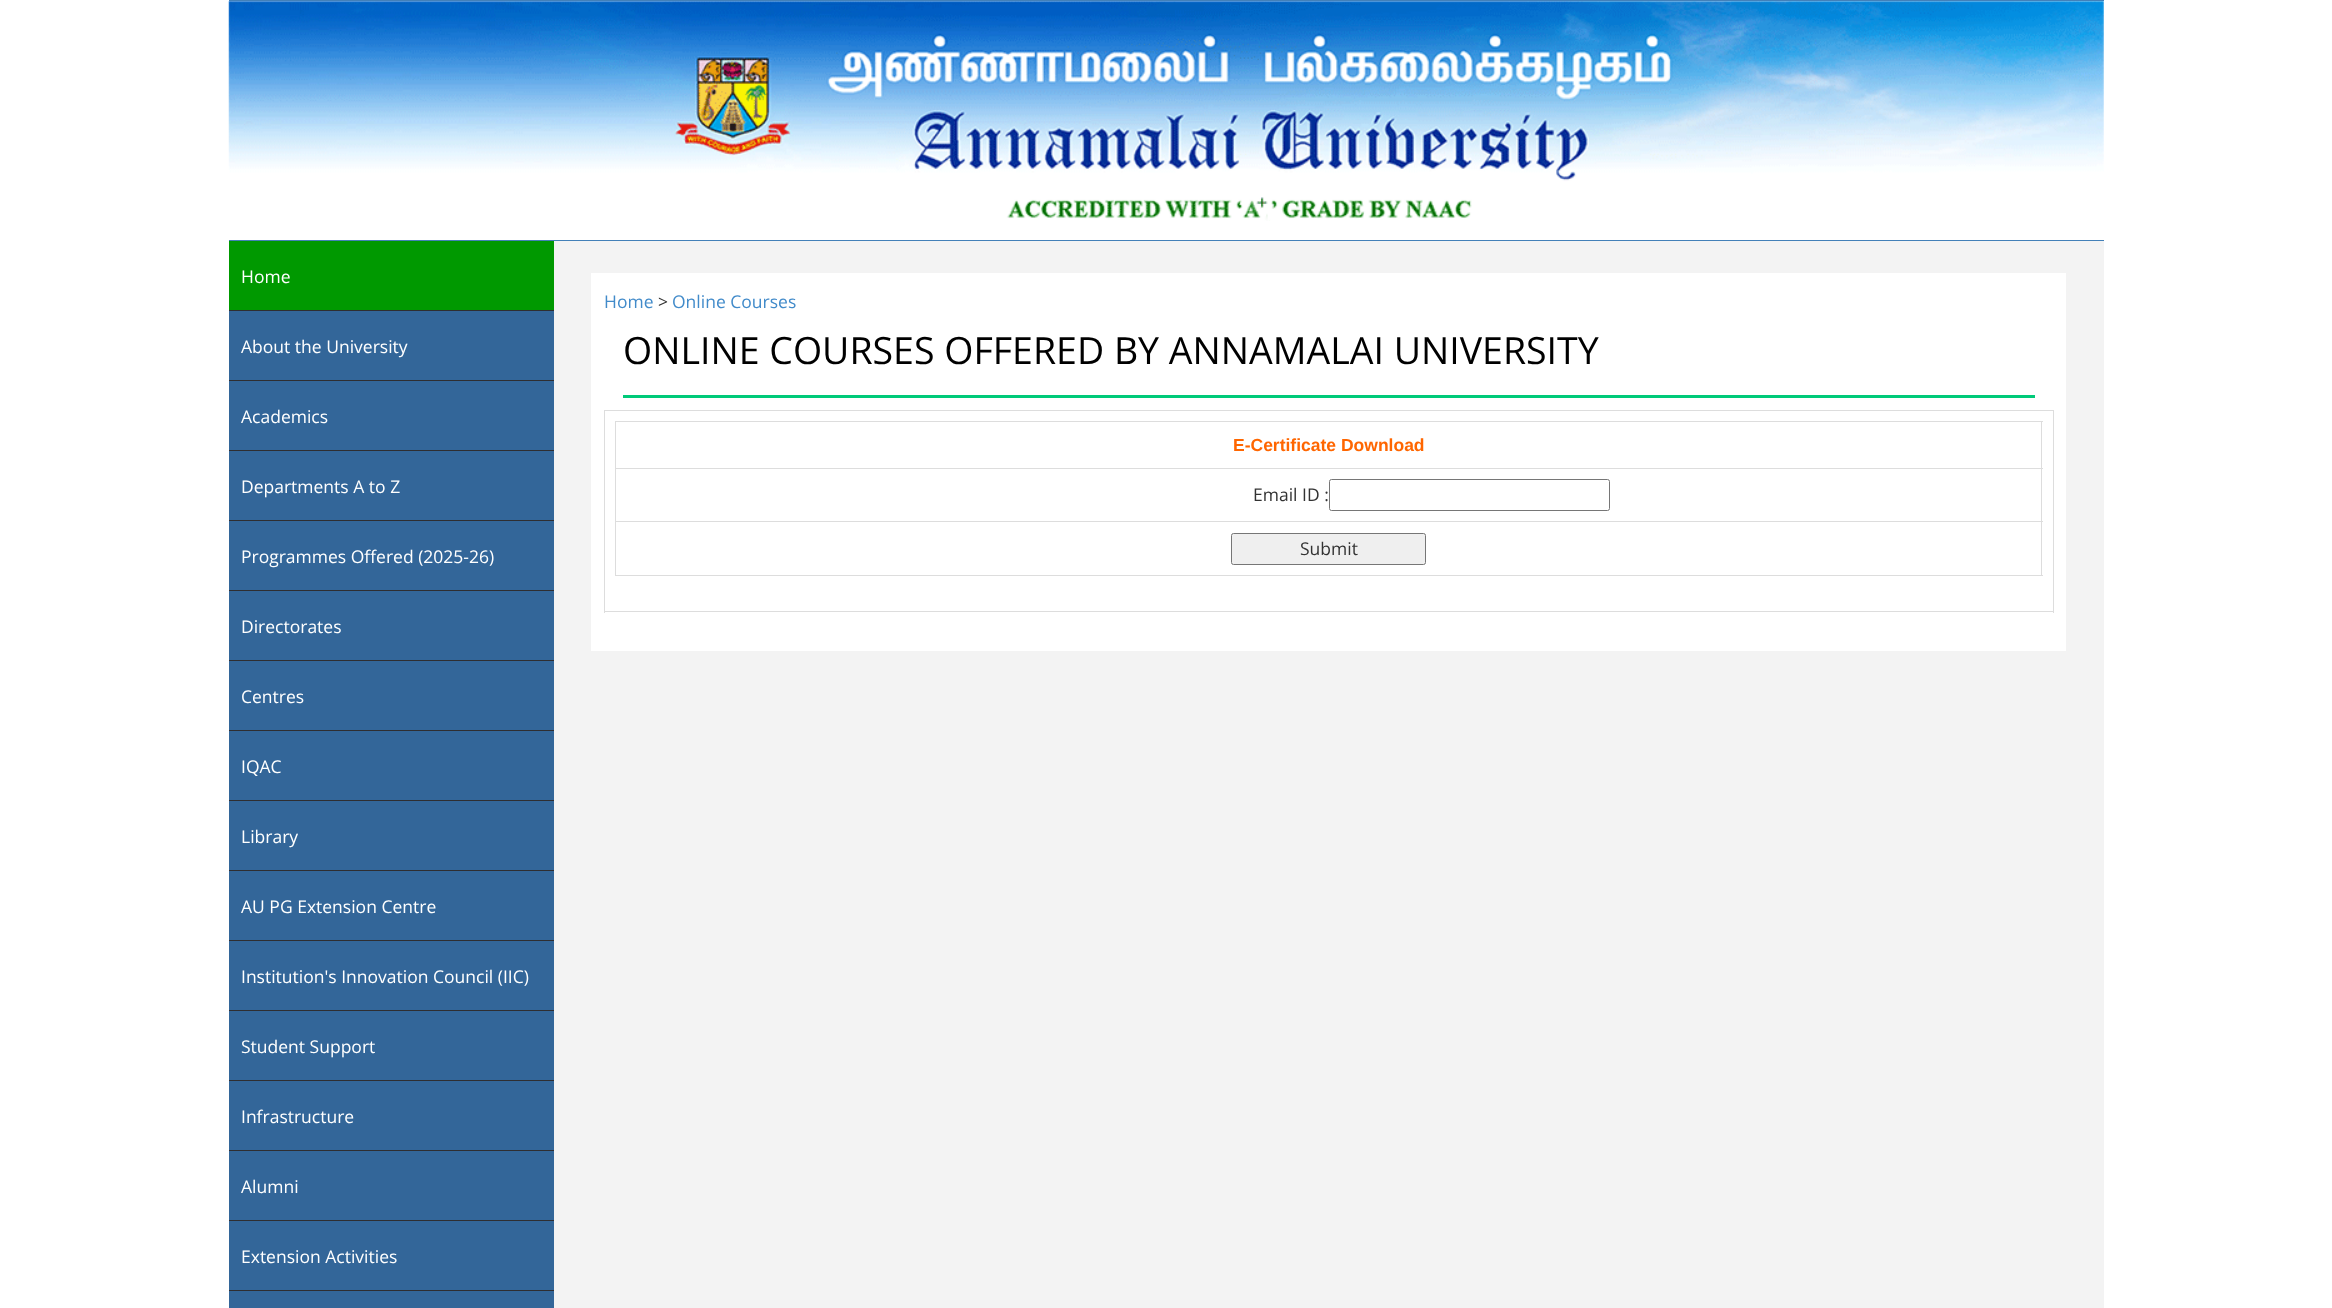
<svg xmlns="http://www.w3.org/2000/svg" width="2332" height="1308">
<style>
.a{font:17.5px Open Sans;fill:#fff}
.b{font:17.5px Open Sans;fill:#428bca}
.c{font:17.5px Open Sans;fill:#333}
.d{font:37.5px Open Sans;fill:#000}
.e{font:bold 17.5px Liberation Sans;fill:#f60}
</style>
<rect width="100%" height="100%" fill="#fff"/>
<path fill="#4380b8" d="M229 0h1875v241H229z"/>
<path fill="#fff" d="M229 1h1875v239H229z"/>
<image href="1.png" x="228" y="1" width="1876" height="220"/>
<path fill="#369" d="M229 311h325v997H229z"/>
<path fill="#090" d="M229 241h325v69H229z"/>
<path fill="#2f2e31" d="M229 310h325v1H229z"/>
<path fill="#2f2e31" d="M229 380h325v1H229z"/>
<path fill="#2f2e31" d="M229 450h325v1H229z"/>
<path fill="#2f2e31" d="M229 520h325v1H229z"/>
<path fill="#2f2e31" d="M229 590h325v1H229z"/>
<path fill="#2f2e31" d="M229 660h325v1H229z"/>
<path fill="#2f2e31" d="M229 730h325v1H229z"/>
<path fill="#2f2e31" d="M229 800h325v1H229z"/>
<path fill="#2f2e31" d="M229 870h325v1H229z"/>
<path fill="#2f2e31" d="M229 940h325v1H229z"/>
<path fill="#2f2e31" d="M229 1010h325v1H229z"/>
<path fill="#2f2e31" d="M229 1080h325v1H229z"/>
<path fill="#2f2e31" d="M229 1150h325v1H229z"/>
<path fill="#2f2e31" d="M229 1220h325v1H229z"/>
<path fill="#2f2e31" d="M229 1290h325v1H229z"/>
<path fill="#f3f3f3" d="M554 241h1550v1067H554z"/>
<path fill="#fff" d="M591 273h1475v378H591z"/>
<path fill="#00ca79" d="M623 395h1412v3H623z"/>
<path fill="#ddd" d="M604 410h1450v1H604z"/>
<path fill="#ddd" d="M2053 410h1v203H2053z"/>
<path fill="#ddd" d="M604 611h1450v1H604z"/>
<path fill="#ddd" d="M604 410h1v203H604z"/>
<path fill="#ddd" d="M615 421h1428v1H615z"/>
<path fill="#ddd" d="M2041 421h1v155H2041z"/>
<path fill="#ddd" d="M615 575h1428v1H615z"/>
<path fill="#ddd" d="M615 421h1v155H615z"/>
<path fill="#ddd" d="M615 468h1428v1H615z"/>
<rect fill="none" stroke="#767676" x="1329.5" y="479.5" width="280" height="31" rx="2"/>
<path fill="#ddd" d="M615 521h1428v1H615z"/>
<rect fill="#efefef" stroke="#767676" x="1231.5" y="533.5" width="194" height="31" rx="2"/>
<text class="a" x="241" y="283">Home</text>
<text class="a" x="241" y="353">About the University</text>
<text class="a" x="241" y="423">Academics</text>
<text class="a" x="241" y="493">Departments A to Z</text>
<text class="a" x="241" y="563">Programmes Offered (2025-26)</text>
<text class="a" x="241" y="633">Directorates</text>
<text class="a" x="241" y="703">Centres</text>
<text class="a" x="241" y="773">IQAC</text>
<text class="a" x="241" y="843">Library</text>
<text class="a" x="241" y="913">AU PG Extension Centre</text>
<text class="a" x="241" y="983">Institution's Innovation Council (IIC)</text>
<text class="a" x="241" y="1053">Student Support</text>
<text class="a" x="241" y="1123">Infrastructure</text>
<text class="a" x="241" y="1193">Alumni</text>
<text class="a" x="241" y="1263">Extension Activities</text>
<text class="b" x="604" y="308">Home</text>
<text class="c" x="658" y="308">&gt;</text>
<text class="b" x="672" y="308">Online Courses</text>
<text class="d" x="623" y="364">ONLINE COURSES OFFERED BY ANNAMALAI UNIVERSITY</text>
<text class="e" x="1233" y="451">E-Certificate Download</text>
<text class="c" x="1253" y="501">Email ID :</text>
<text class="c" x="1300" y="555">Submit</text>
</svg>
